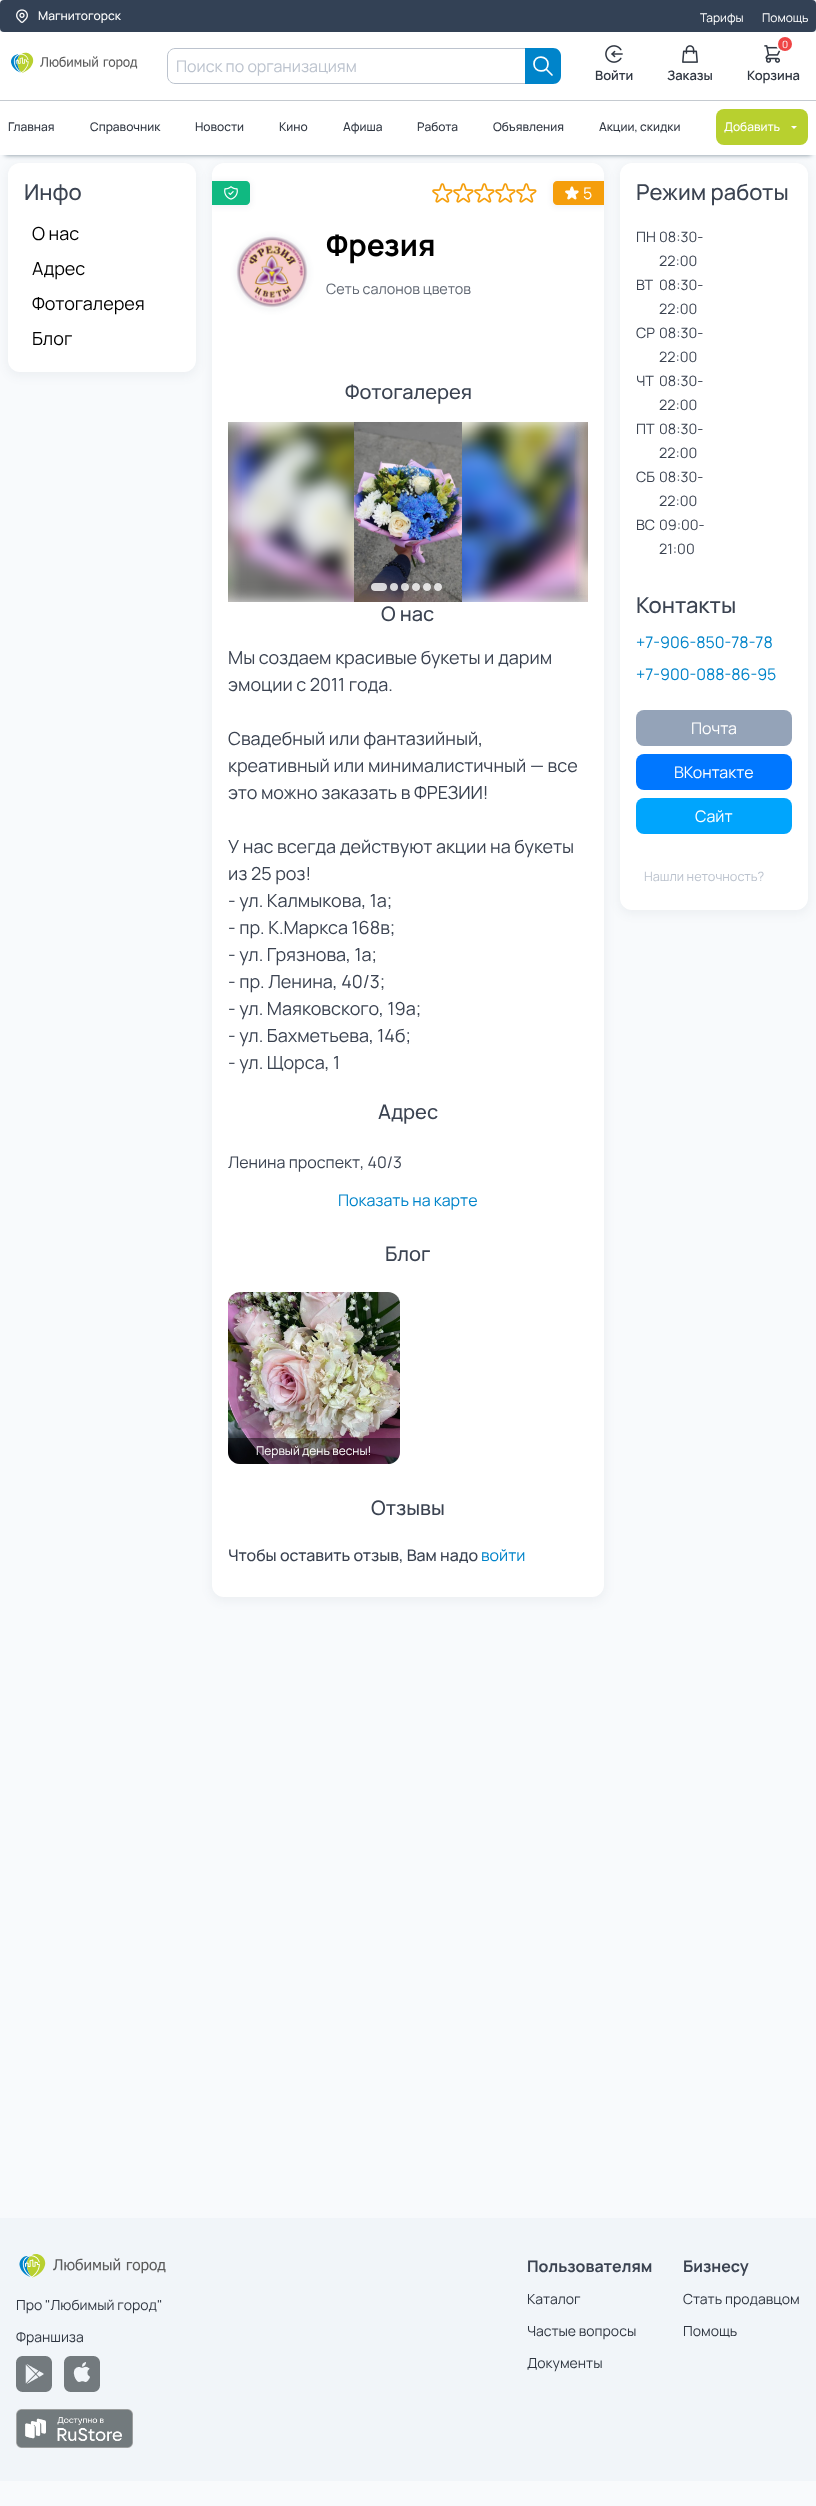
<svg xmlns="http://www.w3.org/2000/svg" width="816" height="2506">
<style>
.a{font:500 12px Manrope;fill:#fff}
.b{font:12px Manrope;fill:#fff}
.c{font:16px Manrope;fill:#bcc3ce}
.d{font:600 13px Manrope;fill:#303742}
.e{font:10px Manrope;fill:#fff}
.f{font:500 12px Manrope;fill:#303742}
.g{font:500 22px Manrope;fill:#3b4351}
.h{font:18px Manrope;fill:#000}
.i{font:16px Manrope;fill:#fff}
.j{font:bold 30px Manrope;fill:#000}
.k{font:14.4px Manrope;fill:#626974}
.l{font:500 20px Manrope;fill:#3b4351}
.m{font:18px Manrope;fill:#3b4351}
.n{font:16px Manrope;fill:#3b4351}
.o{font:16px Manrope;fill:#0084ca}
.p{font:500 16px Manrope;fill:#3b4351}
.q{font:14.4px Manrope;fill:#3b4351}
.r{font:12.75px Manrope;fill:#bcc3ce}
.s{font:14px Manrope;fill:#303742}
.t{font:bold 16px Manrope;fill:#3b4351}
</style>
<defs>
<clipPath id="clip1"><rect x="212" y="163" width="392" height="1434" rx="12"/></clipPath>
<clipPath id="clip2"><path d="M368 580h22v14h-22zm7 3h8c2 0 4 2 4 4c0 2-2 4-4 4h-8c-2 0-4-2-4-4c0-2 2-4 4-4z" clip-rule="evenodd"/></clipPath>
<clipPath id="clip3"><path d="M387 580h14v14h-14zm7 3c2 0 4 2 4 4c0 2-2 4-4 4c-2 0-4-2-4-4c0-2 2-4 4-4z" clip-rule="evenodd"/></clipPath>
<clipPath id="clip4"><path d="M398 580h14v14h-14zm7 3c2 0 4 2 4 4c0 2-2 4-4 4c-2 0-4-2-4-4c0-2 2-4 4-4z" clip-rule="evenodd"/></clipPath>
<clipPath id="clip5"><path d="M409 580h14v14h-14zm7 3c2 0 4 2 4 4c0 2-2 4-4 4c-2 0-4-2-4-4c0-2 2-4 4-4z" clip-rule="evenodd"/></clipPath>
<clipPath id="clip6"><path d="M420 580h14v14h-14zm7 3c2 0 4 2 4 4c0 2-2 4-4 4c-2 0-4-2-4-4c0-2 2-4 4-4z" clip-rule="evenodd"/></clipPath>
<clipPath id="clip7"><path d="M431 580h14v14h-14zm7 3c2 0 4 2 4 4c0 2-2 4-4 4c-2 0-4-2-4-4c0-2 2-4 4-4z" clip-rule="evenodd"/></clipPath>
</defs>
<rect width="100%" height="100%" fill="#f8fafc"/>
<rect fill="#223c500d" filter="blur(5px)" x="-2" y="1" width="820" height="36" rx="6"/>
<rect fill="#334155" width="816" height="32" rx="4"/>
<image href="1.png" x="16" y="9" width="12" height="14"/>
<path fill="#fff" d="M0 32h816v68H0z"/>
<path fill="#c5cad0" d="M0 100h816v1H0z"/>
<image href="2.png" x="11" y="52" width="127" height="21"/>
<path fill="none" stroke="#bcc3ce" d="M175 48.5h350.5v35h-350.5c-4 0-7.5-3.5-7.5-7.5v-20c0-4 3.5-7.5 7.5-7.5z"/>
<path fill="#0084ca" d="M525 48h28c4.5 0 8 3.5 8 8v20c0 4.5-3.5 8-8 8h-28z"/>
<path fill="none" stroke="#fff" stroke-width="1.7" stroke-linecap="round" stroke-linejoin="round" d="M552 75l-6-6m2-5c0 9.5-14 9-14 0c0-9.5 14-9 14 0z"/>
<image href="3.png" x="605" y="45" width="18" height="18"/>
<image href="4.png" x="682" y="45" width="16" height="18"/>
<image href="5.png" x="764" y="45" width="18" height="18"/>
<circle fill="none" stroke="#fff" stroke-width="2" cx="785" cy="44" r="8"/>
<circle fill="#ef4444" cx="785" cy="44" r="7"/>
<path fill="#223c5099" filter="blur(2.5px)" d="M5 111h806v44H5z"/>
<path fill="#fff" d="M0 101h816v54H0z"/>
<rect fill="#b8d02f" x="716" y="109" width="92" height="36" rx="8"/>
<path fill="#fff" d="M791 126h6l-3 3z"/>
<rect fill="#223c500d" filter="blur(5px)" x="6" y="164" width="192" height="213" rx="14"/>
<rect fill="#fff" x="8" y="163" width="188" height="209" rx="12"/>
<rect fill="#223c500d" filter="blur(5px)" x="210" y="164" width="396" height="1438" rx="14"/>
<rect fill="#fff" x="212" y="163" width="392" height="1434" rx="12"/>
<g clip-path="url(#clip1)">
<rect fill="#223c500d" filter="blur(2.5px)" x="210" y="180" width="42" height="28" rx="6"/>
</g>
<path fill="#10b981" d="M212 181h34c2 0 4 2 4 4v16c0 2-2 4-4 4h-34z"/>
<image href="6.png" x="224" y="186" width="14" height="14"/>
<image href="7.png" x="432" y="183" width="21" height="20"/>
<image href="7.png" x="453" y="183" width="21" height="20"/>
<image href="7.png" x="474" y="183" width="21" height="20"/>
<image href="7.png" x="495" y="183" width="21" height="20"/>
<image href="7.png" x="516" y="183" width="21" height="20"/>
<g clip-path="url(#clip1)">
<rect fill="#223c500d" filter="blur(2.5px)" x="551" y="180" width="55" height="28" rx="6"/>
</g>
<path fill="#f59e0b" d="M557 181h47v24h-47c-2 0-4-2-4-4v-16c0-2 2-4 4-4z"/>
<image href="8.png" x="565" y="186" width="14" height="14"/>
<rect fill="#223c500d" filter="blur(2.5px)" x="234" y="235" width="76" height="76" rx="38"/>
<image href="9.png" x="236" y="236" width="72" height="72"/>
<image href="10.png" x="228" y="422" width="360" height="180"/>
<image href="11.png" x="354" y="422" width="108" height="180"/>
<image href="12.png" x="228" y="422" width="14" height="180"/>
<image href="15.png" x="575" y="422" width="13" height="180"/>
<image href="13.png" x="574" y="422" width="14" height="180"/>
<image href="16.png" x="575" y="422" width="13" height="177"/>
<image href="14.png" x="574" y="422" width="14" height="173"/>
<g clip-path="url(#clip2)">
<rect fill="#000000cc" filter="blur(0.5px)" x="371" y="583" width="16" height="8" rx="4"/>
</g>
<rect fill="#ffffffcc" x="371" y="583" width="16" height="8" rx="4"/>
<g clip-path="url(#clip3)">
<rect fill="#000000cc" filter="blur(0.5px)" x="390" y="583" width="8" height="8" rx="4"/>
</g>
<circle fill="#ffffffcc" cx="394" cy="587" r="4"/>
<g clip-path="url(#clip4)">
<rect fill="#000000cc" filter="blur(0.5px)" x="401" y="583" width="8" height="8" rx="4"/>
</g>
<circle fill="#ffffffcc" cx="405" cy="587" r="4"/>
<g clip-path="url(#clip5)">
<rect fill="#000000cc" filter="blur(0.5px)" x="412" y="583" width="8" height="8" rx="4"/>
</g>
<circle fill="#ffffffcc" cx="416" cy="587" r="4"/>
<g clip-path="url(#clip6)">
<rect fill="#000000cc" filter="blur(0.5px)" x="423" y="583" width="8" height="8" rx="4"/>
</g>
<circle fill="#ffffffcc" cx="427" cy="587" r="4"/>
<g clip-path="url(#clip7)">
<rect fill="#000000cc" filter="blur(0.5px)" x="434" y="583" width="8" height="8" rx="4"/>
</g>
<circle fill="#ffffffcc" cx="438" cy="587" r="4"/>
<image href="17.png" x="228" y="1292" width="172" height="172"/>
<path fill="#00000075" d="M228 1438h172v14c0 6.5-5.5 12-12 12h-148c-6.5 0-12-5.5-12-12z"/>
<rect fill="#223c500d" filter="blur(5px)" x="618" y="164" width="192" height="751" rx="14"/>
<rect fill="#fff" x="620" y="163" width="188" height="747" rx="12"/>
<rect fill="#94a3b8" x="636" y="710" width="156" height="36" rx="8"/>
<rect fill="#07f" x="636" y="754" width="156" height="36" rx="8"/>
<rect fill="#00a5fd" x="636" y="798" width="156" height="36" rx="8"/>
<path fill="#f1f5f9" d="M0 2218h816v263H0z"/>
<image href="18.png" x="19" y="2254" width="147" height="24"/>
<image href="19.png" x="16" y="2356" width="36" height="36"/>
<image href="20.png" x="64" y="2356" width="36" height="36"/>
<image href="21.png" x="16" y="2409" width="117" height="39"/>
<text class="a" x="38" y="20">Магнитогорск</text>
<text class="b" x="700" y="22">Тарифы</text>
<text class="b" x="762" y="22">Помощь</text>
<text class="c" x="176" y="72">Поиск по организациям</text>
<text class="d" x="595" y="80">Войти</text>
<text class="d" x="667" y="80">Заказы</text>
<text class="e" x="782" y="48">0</text>
<text class="d" x="747" y="80">Корзина</text>
<text class="f" x="8" y="131">Главная</text>
<text class="f" x="90" y="131">Справочник</text>
<text class="f" x="195" y="131">Новости</text>
<text class="f" x="279" y="131">Кино</text>
<text class="f" x="343" y="131">Афиша</text>
<text class="f" x="417" y="131">Работа</text>
<text class="f" x="493" y="131">Объявления</text>
<text class="f" x="599" y="131">Акции, скидки</text>
<text class="a" x="724" y="131">Добавить</text>
<text class="g" x="24" y="200">Инфо</text>
<text class="h" x="32" y="240">О нас</text>
<text class="h" x="32" y="275">Адрес</text>
<text class="h" x="32" y="310">Фотогалерея</text>
<text class="h" x="32" y="345">Блог</text>
<text class="i" x="583" y="199">5</text>
<text class="j" x="326" y="256">Фрезия</text>
<text class="k" x="326" y="294">Сеть салонов цветов</text>
<text class="l" x="345" y="399">Фотогалерея</text>
<text class="l" x="381" y="621">О нас</text>
<text class="m" x="228" y="664">Мы создаем красивые букеты и дарим</text>
<text class="m" x="228" y="691">эмоции с 2011 года.</text>
<text class="m" x="228" y="745">Свадебный или фантазийный,</text>
<text class="m" x="228" y="772">креативный или минималистичный — все</text>
<text class="m" x="228" y="799">это можно заказать в ФРЕЗИИ!</text>
<text class="m" x="228" y="853">У нас всегда действуют акции на букеты</text>
<text class="m" x="228" y="880">из 25 роз!</text>
<text class="m" x="228" y="907">- ул. Калмыкова, 1а;</text>
<text class="m" x="228" y="934">- пр. К.Маркса 168в;</text>
<text class="m" x="228" y="961">- ул. Грязнова, 1а;</text>
<text class="m" x="228" y="988">- пр. Ленина, 40/3;</text>
<text class="m" x="228" y="1015">- ул. Маяковского, 19а;</text>
<text class="m" x="228" y="1042">- ул. Бахметьева, 14б;</text>
<text class="m" x="228" y="1069">- ул. Щорса, 1</text>
<text class="l" x="378" y="1119">Адрес</text>
<text class="n" x="228" y="1168">Ленина проспект, 40/3</text>
<text class="o" x="338" y="1206">Показать на карте</text>
<text class="l" x="385" y="1261">Блог</text>
<text class="b" x="256" y="1455">Первый день весны!</text>
<text class="l" x="371" y="1515">Отзывы</text>
<text class="p" x="228" y="1561">Чтобы оставить отзыв, Вам надо</text>
<text class="o" x="481" y="1561">войти</text>
<text class="g" x="636" y="200">Режим работы</text>
<text class="q" x="636" y="242">ПН</text>
<text class="q" x="659" y="242">08:30-</text>
<text class="q" x="659" y="266">22:00</text>
<text class="q" x="636" y="290">ВТ</text>
<text class="q" x="659" y="290">08:30-</text>
<text class="q" x="659" y="314">22:00</text>
<text class="q" x="636" y="338">СР</text>
<text class="q" x="659" y="338">08:30-</text>
<text class="q" x="659" y="362">22:00</text>
<text class="q" x="636" y="386">ЧТ</text>
<text class="q" x="659" y="386">08:30-</text>
<text class="q" x="659" y="410">22:00</text>
<text class="q" x="636" y="434">ПТ</text>
<text class="q" x="659" y="434">08:30-</text>
<text class="q" x="659" y="458">22:00</text>
<text class="q" x="636" y="482">СБ</text>
<text class="q" x="659" y="482">08:30-</text>
<text class="q" x="659" y="506">22:00</text>
<text class="q" x="636" y="530">ВС</text>
<text class="q" x="659" y="530">09:00-</text>
<text class="q" x="659" y="554">21:00</text>
<text class="g" x="636" y="613">Контакты</text>
<text class="o" x="636" y="648">+7-906-850-78-78</text>
<text class="o" x="636" y="680">+7-900-088-86-95</text>
<text class="i" x="691" y="734">Почта</text>
<text class="i" x="674" y="778">ВКонтакте</text>
<text class="i" x="695" y="822">Сайт</text>
<text class="r" x="644" y="881">Нашли неточность?</text>
<text class="s" x="16" y="2310">Про "Любимый город"</text>
<text class="s" x="16" y="2342">Франшиза</text>
<text class="t" x="527" y="2272">Пользователям</text>
<text class="s" x="527" y="2304">Каталог</text>
<text class="s" x="527" y="2336">Частые вопросы</text>
<text class="s" x="527" y="2368">Документы</text>
<text class="t" x="683" y="2272">Бизнесу</text>
<text class="s" x="683" y="2304">Стать продавцом</text>
<text class="s" x="683" y="2336">Помощь</text>
</svg>
